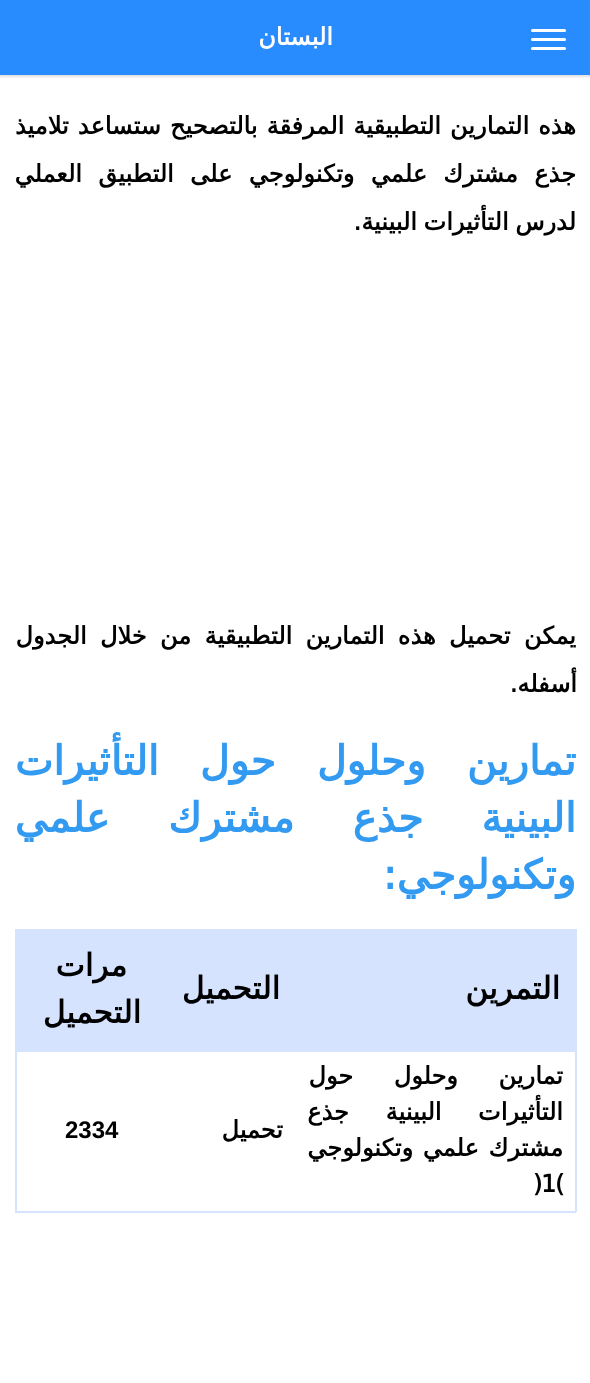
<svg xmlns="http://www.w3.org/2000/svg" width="590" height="1383">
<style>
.a{font:bold 24px DejaVu Sans;direction:rtl;fill:#fff}
.b{font:bold 24px DejaVu Sans;direction:rtl;fill:#000}
.c{font:bold 40.75px DejaVu Sans;direction:rtl;fill:#329af0}
.d{font:bold 31px DejaVu Sans;direction:rtl;fill:#000}
.e{font:bold 24px DejaVu Sans;fill:#000}
.f{font:bold 24px Liberation Sans;fill:#000}
</style>
<rect width="100%" height="100%" fill="#fff"/>
<path fill="#0000001f" filter="blur(1px)" d="M-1 -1h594v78H-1z"/>
<path fill="#288cff" d="M0 0h590v75H0z"/>
<rect fill="#fff" x="531" y="29" width="35" height="3" rx="1.5"/>
<rect fill="#fff" x="531" y="38" width="35" height="3" rx="1.5"/>
<rect fill="#fff" x="531" y="47" width="35" height="3" rx="1.5"/>
<path fill="#d6e3ff" d="M17 931h558v119H17z"/>
<path fill="#d6e3ff" d="M15 929h561v2H15z"/>
<path fill="#d6e3ff" d="M15 1050h561v2H15z"/>
<path fill="#d6e3ff" d="M575 1050h2v162H575z"/>
<path fill="#d6e3ff" d="M575 929h2v123H575z"/>
<path fill="#d6e3ff" d="M15 1211h561v2H15z"/>
<path fill="#d6e3ff" d="M15 1050h2v162H15z"/>
<path fill="#d6e3ff" d="M15 929h2v123H15z"/>
<text class="a" x="333" y="45">البستان</text>
<text class="b" x="576" y="134" word-spacing="1.5">هذه التمارين التطبيقية المرفقة بالتصحيح ستساعد تلاميذ</text>
<text class="b" x="576" y="182" word-spacing="8.75">جذع مشترك علمي وتكنولوجي على التطبيق العملي</text>
<text class="b" x="576" y="230" word-spacing="-1">لدرس التأثيرات البينية.</text>
<text class="b" x="576" y="644" word-spacing="5.75">يمكن تحميل هذه التمارين التطبيقية من خلال الجدول</text>
<text class="b" x="577" y="692">أسفله.</text>
<text class="c" x="576" y="775" word-spacing="28">تمارين وحلول حول التأثيرات</text>
<text class="c" x="576" y="832" word-spacing="45">البينية جذع مشترك علمي</text>
<text class="c" x="576" y="889">وتكنولوجي:</text>
<text class="d" x="560" y="999">التمرين</text>
<text class="d" x="280" y="999">التحميل</text>
<text class="d" x="127" y="976">مرات</text>
<text class="d" x="141" y="1023">التحميل</text>
<text class="b" x="563" y="1084" word-spacing="33">تمارين وحلول حول</text>
<text class="b" x="563" y="1120" word-spacing="29">التأثيرات البينية جذع</text>
<text class="b" x="563" y="1156" word-spacing="2">مشترك علمي وتكنولوجي</text>
<text class="e" x="555" y="1192">(</text>
<text class="e" x="541" y="1192">1</text>
<text class="e" x="533" y="1192">)</text>
<text class="b" x="283" y="1138">تحميل</text>
<text class="f" x="65" y="1138">2334</text>
</svg>
